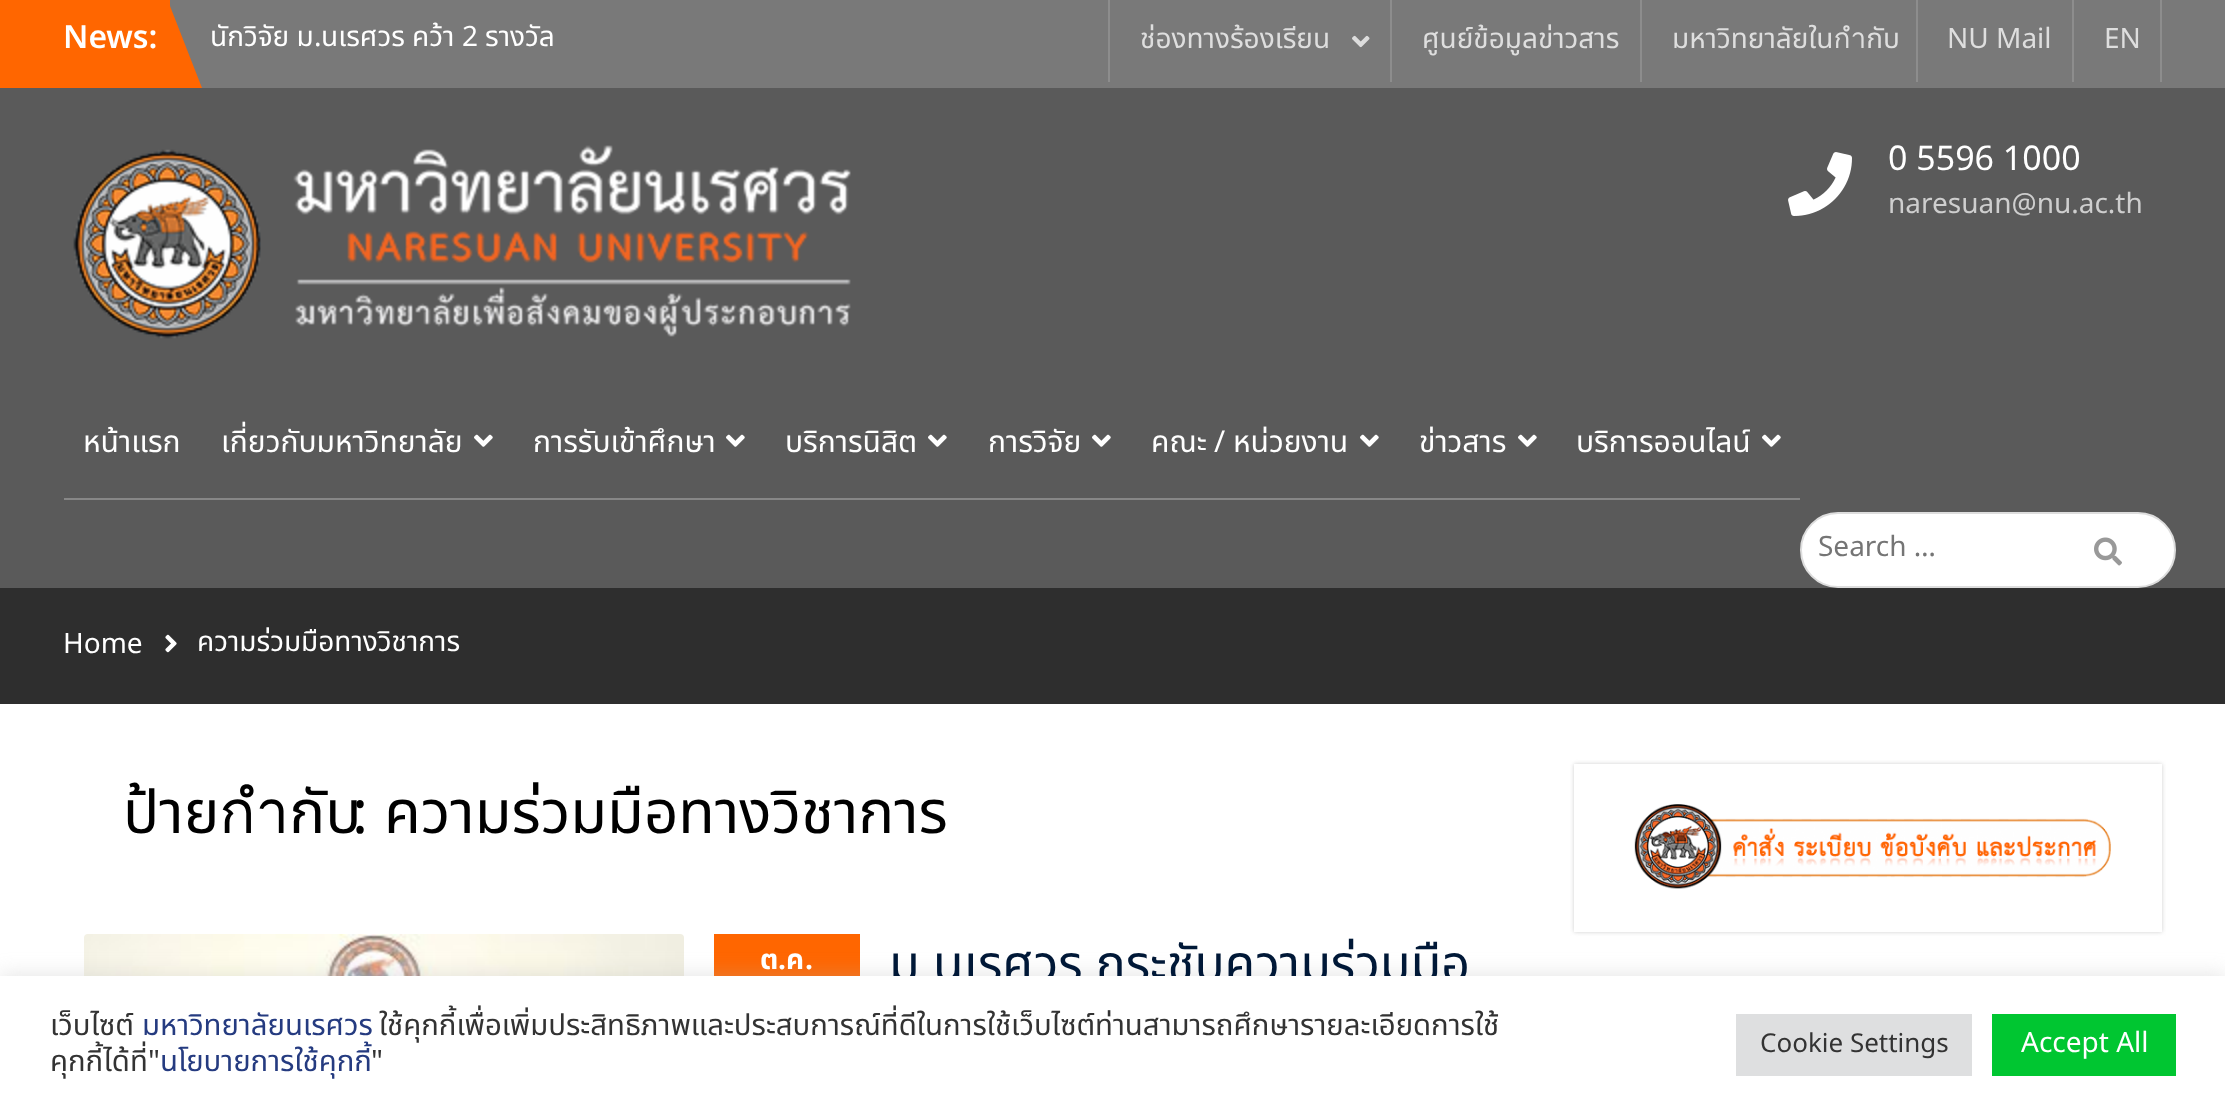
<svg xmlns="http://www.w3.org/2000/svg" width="2225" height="1114">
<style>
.a{font:600 32px Noto Sans;fill:#fff}
.b{font:28px Noto Sans Thai;fill:#fff}
.c{font:28px Noto Sans;fill:#fff}
.d{font:28px Noto Sans Thai;fill:#dedede}
.e{font:28px Noto Sans;fill:#dedede}
.f{font:34px Noto Sans;fill:#fff}
.g{font:28px Noto Sans;fill:#cecece}
.h{font:30px Noto Sans Thai;fill:#fff}
.i{font:30px Noto Sans;fill:#fff}
.j{font:28px Noto Sans;fill:#757575}
.k{font:60px Noto Sans Thai;fill:#000}
.l{font:60px Noto Sans;fill:#000}
.m{font:bold 28px Noto Sans Thai;fill:#fff}
.n{font:bold 28px Noto Sans;fill:#fff}
.o{font:50px Noto Sans Thai;fill:#001837}
.p{font:29.35px Noto Sans Thai;fill:#333}
.q{font:29.35px Noto Sans Thai;fill:#253b80}
.r{font:29.35px Noto Sans;fill:#333}
.s{font:26px Noto Sans;fill:#333}
</style>
<defs>
<clipPath id="clip1"><path d="M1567 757h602v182h-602zm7 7h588v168h-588z" clip-rule="evenodd"/></clipPath>
<clipPath id="clip2"><path d="M210 18h374v42H210z"/></clipPath>
</defs>
<rect width="100%" height="100%" fill="#fff"/>
<path fill="#797979" d="M170 0h2055v88H170z"/>
<path fill="#f60" d="M0 0h170v88H0z"/>
<path fill="#f60" d="M170 88v-82l32 82z"/>
<path fill="#8d8d8d" d="M1390 0h2v82H1390z"/>
<path fill="#8d8d8d" d="M1108 0h2v82H1108z"/>
<image href="1.png" x="1352" y="35" width="18" height="13"/>
<path fill="#8d8d8d" d="M1640 0h2v82H1640z"/>
<path fill="#8d8d8d" d="M1916 0h2v82H1916z"/>
<path fill="#8d8d8d" d="M2072 0h2v82H2072z"/>
<path fill="#8d8d8d" d="M2160 0h2v82H2160z"/>
<path fill="#5a5a5a" d="M0 88h2225v500H0z"/>
<image href="2.png" x="73" y="145" width="778" height="194"/>
<image href="3.png" x="1788" y="152" width="64" height="64"/>
<path fill="#878787" d="M64 498h1736v2H64z"/>
<image href="4.png" x="474" y="434" width="19" height="13"/>
<image href="4.png" x="726" y="434" width="19" height="13"/>
<image href="4.png" x="928" y="434" width="19" height="13"/>
<image href="4.png" x="1092" y="434" width="19" height="13"/>
<image href="4.png" x="1360" y="434" width="19" height="13"/>
<image href="4.png" x="1518" y="434" width="19" height="13"/>
<image href="4.png" x="1762" y="434" width="19" height="13"/>
<rect fill="#fff" stroke="#ddd" stroke-width="2" x="1801" y="513" width="374" height="74" rx="37"/>
<image href="5.png" x="2094" y="537" width="28" height="29"/>
<path fill="#2e2e2e" d="M0 588h2225v116H0z"/>
<image href="6.png" x="165" y="634" width="12" height="19"/>
<image href="7.png" x="84" y="934" width="600" height="42"/>
<path fill="#f60" d="M714 934h146v42H714z"/>
<g clip-path="url(#clip1)">
<path fill="#cfcfcf" filter="blur(2px)" d="M1574 764h588v168H1574z"/>
</g>
<image href="8.png" x="1634" y="804" width="477" height="85"/>
<path fill="#acabab4d" filter="blur(10px)" d="M0 974h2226v138H0z"/>
<text class="a" x="63" y="48">News:</text>
<g clip-path="url(#clip2)">
<text class="b" x="210" y="46">นักวิจัย ม</text>
</g>
<text class="c" x="314" y="46">.</text>
<text class="b" x="321" y="46">นเรศวร คว้า</text>
<text class="c" x="462" y="46">2</text>
<text class="b" x="485" y="46">รางวัล</text>
<text class="d" x="1140" y="48">ช่องทางร้องเรียน</text>
<text class="d" x="1422" y="48">ศูนย์ข้อมูลข่าวสาร</text>
<text class="d" x="1672" y="48">มหาวิทยาลัยในกำกับ</text>
<text class="e" x="1947" y="48">NU Mail</text>
<text class="e" x="2104" y="48">EN</text>
<text class="f" x="1888" y="170">0 5596 1000</text>
<text class="g" x="1888" y="213">naresuan@nu.ac.th</text>
<text class="h" x="83" y="452">หน้าแรก</text>
<text class="h" x="221" y="452">เกี่ยวกับมหาวิทยาลัย</text>
<text class="h" x="533" y="452">การรับเข้าศึกษา</text>
<text class="h" x="785" y="452">บริการนิสิต</text>
<text class="h" x="988" y="452">การวิจัย</text>
<text class="h" x="1151" y="452">คณะ</text>
<text class="i" x="1214" y="452">/</text>
<text class="h" x="1233" y="452">หน่วยงาน</text>
<text class="h" x="1419" y="452">ข่าวสาร</text>
<text class="h" x="1576" y="452">บริการออนไลน์</text>
<text class="j" x="1818" y="556">Search …</text>
<text class="c" x="63" y="653">Home</text>
<text class="b" x="197" y="651">ความร่วมมือทางวิชาการ</text>
<text class="k" x="123" y="833">ป้ายกำกับ</text>
<text class="l" x="352" y="833">:</text>
<text class="k" x="384" y="833">ความร่วมมือทางวิชาการ</text>
<text class="m" x="760" y="969">ต</text>
<text class="n" x="778" y="969">.</text>
<text class="m" x="786" y="969">ค</text>
<text class="n" x="805" y="969">.</text>
<text class="o" x="889" y="981">ม</text>
<text class="o" x="933" y="981">นเรศวร กระชับความร่วมมือ</text>
<path fill="#fff" d="M0 976h2225v138H0z"/>
<text class="p" x="50" y="1035">เว็บไซต์</text>
<text class="q" x="142" y="1035">มหาวิทยาลัยนเรศวร</text>
<text class="p" x="379" y="1035">ใช้คุกกี้เพื่อเพิ่มประสิทธิภาพและประสบการณ์ที่ดีในการใช้เว็บไซต์ท่านสามารถศึกษารายละเอียดการใช้</text>
<text class="p" x="50" y="1071">คุกกี้ได้ที่</text>
<text class="r" x="148" y="1071">"</text>
<text class="q" x="160" y="1071">นโยบายการใช้คุกกี้</text>
<text class="r" x="371" y="1071">"</text>
<path fill="#dedfe0" d="M1736 1014h236v62H1736z"/>
<text class="s" x="1760" y="1052">Cookie Settings</text>
<path fill="#00c631" d="M1992 1014h184v62H1992z"/>
<text class="c" x="2021" y="1052">Accept All</text>
</svg>
